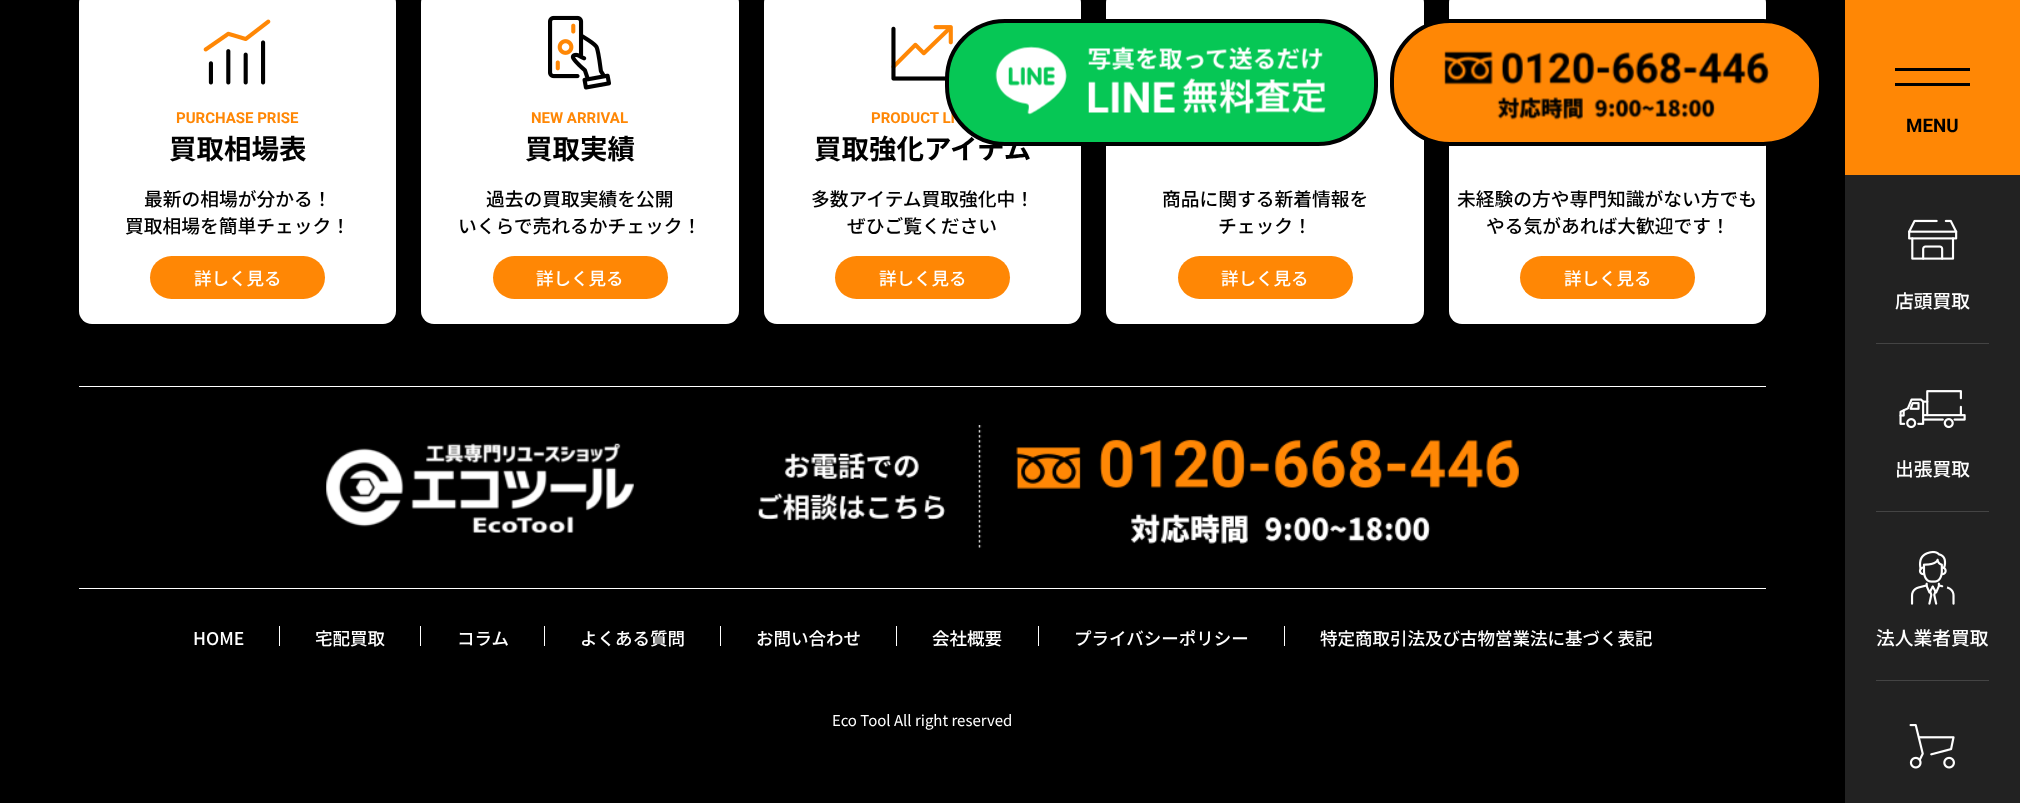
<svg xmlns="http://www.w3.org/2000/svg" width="2020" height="803">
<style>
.a{font:bold 15px Roboto;fill:#ff8705}
.b{font:bold 27.5px Noto Sans JP;fill:#000}
.c{font:500 18.75px Noto Sans JP;fill:#000}
.d{font:500 17.5px Noto Sans JP;fill:#fff}
.e{font:15px Noto Sans JP;fill:#fff}
.f{font:bold 18.75px Roboto;fill:#000}
.g{font:500 18.75px Noto Sans JP;fill:#fff}
</style>
<rect width="100%" height="100%" fill="#000"/>
<rect fill="#fff" x="1106" y="-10" width="318" height="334" rx="13"/>
<rect fill="#fff" x="1449" y="-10" width="317" height="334" rx="13"/>
<rect fill="#ff8705" stroke="#000" stroke-width="4" x="1392" y="21" width="429" height="123" rx="58"/>
<image href="2.png" x="1444" y="50" width="326" height="70"/>
<rect fill="#fff" x="79" y="-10" width="317" height="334" rx="13"/>
<image href="3.png" x="203" y="19" width="68" height="66"/>
<rect fill="#ff8705" x="150" y="256" width="175" height="43" rx="21.5"/>
<rect fill="#fff" x="421" y="-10" width="318" height="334" rx="13"/>
<image href="4.png" x="548" y="15" width="63" height="75"/>
<rect fill="#ff8705" x="493" y="256" width="175" height="43" rx="21.5"/>
<rect fill="#fff" x="764" y="-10" width="317" height="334" rx="13"/>
<image href="5.png" x="891" y="25" width="62" height="56"/>
<rect fill="#ff8705" x="835" y="256" width="175" height="43" rx="21.5"/>
<rect fill="#ff8705" x="1178" y="256" width="175" height="43" rx="21.5"/>
<rect fill="#ff8705" x="1520" y="256" width="175" height="43" rx="21.5"/>
<path fill="#fff" d="M79 386h1687v1H79z"/>
<path fill="#fff" d="M79 588h1687v1H79z"/>
<image href="6.png" x="326" y="443" width="308" height="90"/>
<image href="7.png" x="758" y="425" width="761" height="123"/>
<path fill="#fff" d="M279 626h1v20H279z"/>
<path fill="#fff" d="M420 626h1v20H420z"/>
<path fill="#fff" d="M544 626h1v20H544z"/>
<path fill="#fff" d="M720 626h1v20H720z"/>
<path fill="#fff" d="M896 626h1v20H896z"/>
<path fill="#fff" d="M1038 626h1v20H1038z"/>
<path fill="#fff" d="M1284 626h1v20H1284z"/>
<path fill="#ff8705" d="M1845 0h175v175H1845z"/>
<path fill="#000" d="M1895 68h75v3H1895z"/>
<path fill="#000" d="M1895 83h75v3H1895z"/>
<path fill="#222" d="M1845 175h175v628H1845z"/>
<image href="8.png" x="1908" y="219" width="50" height="41"/>
<path fill="#444" d="M1876 343h113v1H1876z"/>
<image href="9.png" x="1899" y="390" width="67" height="39"/>
<path fill="#444" d="M1876 511h113v1H1876z"/>
<image href="10.png" x="1910" y="550" width="45" height="55"/>
<path fill="#444" d="M1876 680h113v1H1876z"/>
<image href="11.png" x="1909" y="724" width="46" height="45"/>
<text class="a" x="176" y="123">PURCHASE PRISE</text>
<text class="b" x="169" y="159">買取相場表</text>
<text class="c" x="144" y="206">最新の相場が分かる！</text>
<text class="c" x="125" y="233">買取相場を簡単チェック！</text>
<text class="d" x="194" y="285">詳しく見る</text>
<text class="a" x="531" y="123">NEW ARRIVAL</text>
<text class="b" x="525" y="159">買取実績</text>
<text class="c" x="486" y="206">過去の買取実績を公開</text>
<text class="c" x="458" y="233">いくらで売れるかチェック！</text>
<text class="d" x="536" y="285">詳しく見る</text>
<text class="a" x="871" y="123">PRODUCT LI</text>
<text class="b" x="814" y="159">買取強化アイテム</text>
<rect fill="#06c755" stroke="#000" stroke-width="4" x="947" y="21" width="429" height="123" rx="58"/>
<image href="1.png" x="995" y="46" width="331" height="69"/>
<text class="c" x="811" y="206">多数アイテム買取強化中！</text>
<text class="c" x="847" y="233">ぜひご覧ください</text>
<text class="d" x="879" y="285">詳しく見る</text>
<text class="c" x="1162" y="206">商品に関する新着情報を</text>
<text class="c" x="1218" y="233">チェック！</text>
<text class="d" x="1221" y="285">詳しく見る</text>
<text class="c" x="1457" y="206">未経験の方や専門知識がない方でも</text>
<text class="c" x="1486" y="233">やる気があれば大歓迎です！</text>
<text class="d" x="1564" y="285">詳しく見る</text>
<text class="d" x="193" y="645">HOME</text>
<text class="d" x="315" y="645">宅配買取</text>
<text class="d" x="457" y="645">コラム</text>
<text class="d" x="580" y="645">よくある質問</text>
<text class="d" x="756" y="645">お問い合わせ</text>
<text class="d" x="932" y="645">会社概要</text>
<text class="d" x="1074" y="645">プライバシーポリシー</text>
<text class="d" x="1320" y="645">特定商取引法及び古物営業法に基づく表記</text>
<text class="e" x="832" y="726">Eco Tool All right reserved</text>
<text class="f" x="1906" y="132">MENU</text>
<text class="g" x="1895" y="308">店頭買取</text>
<text class="g" x="1895" y="476">出張買取</text>
<text class="g" x="1876" y="645">法人業者買取</text>
</svg>
